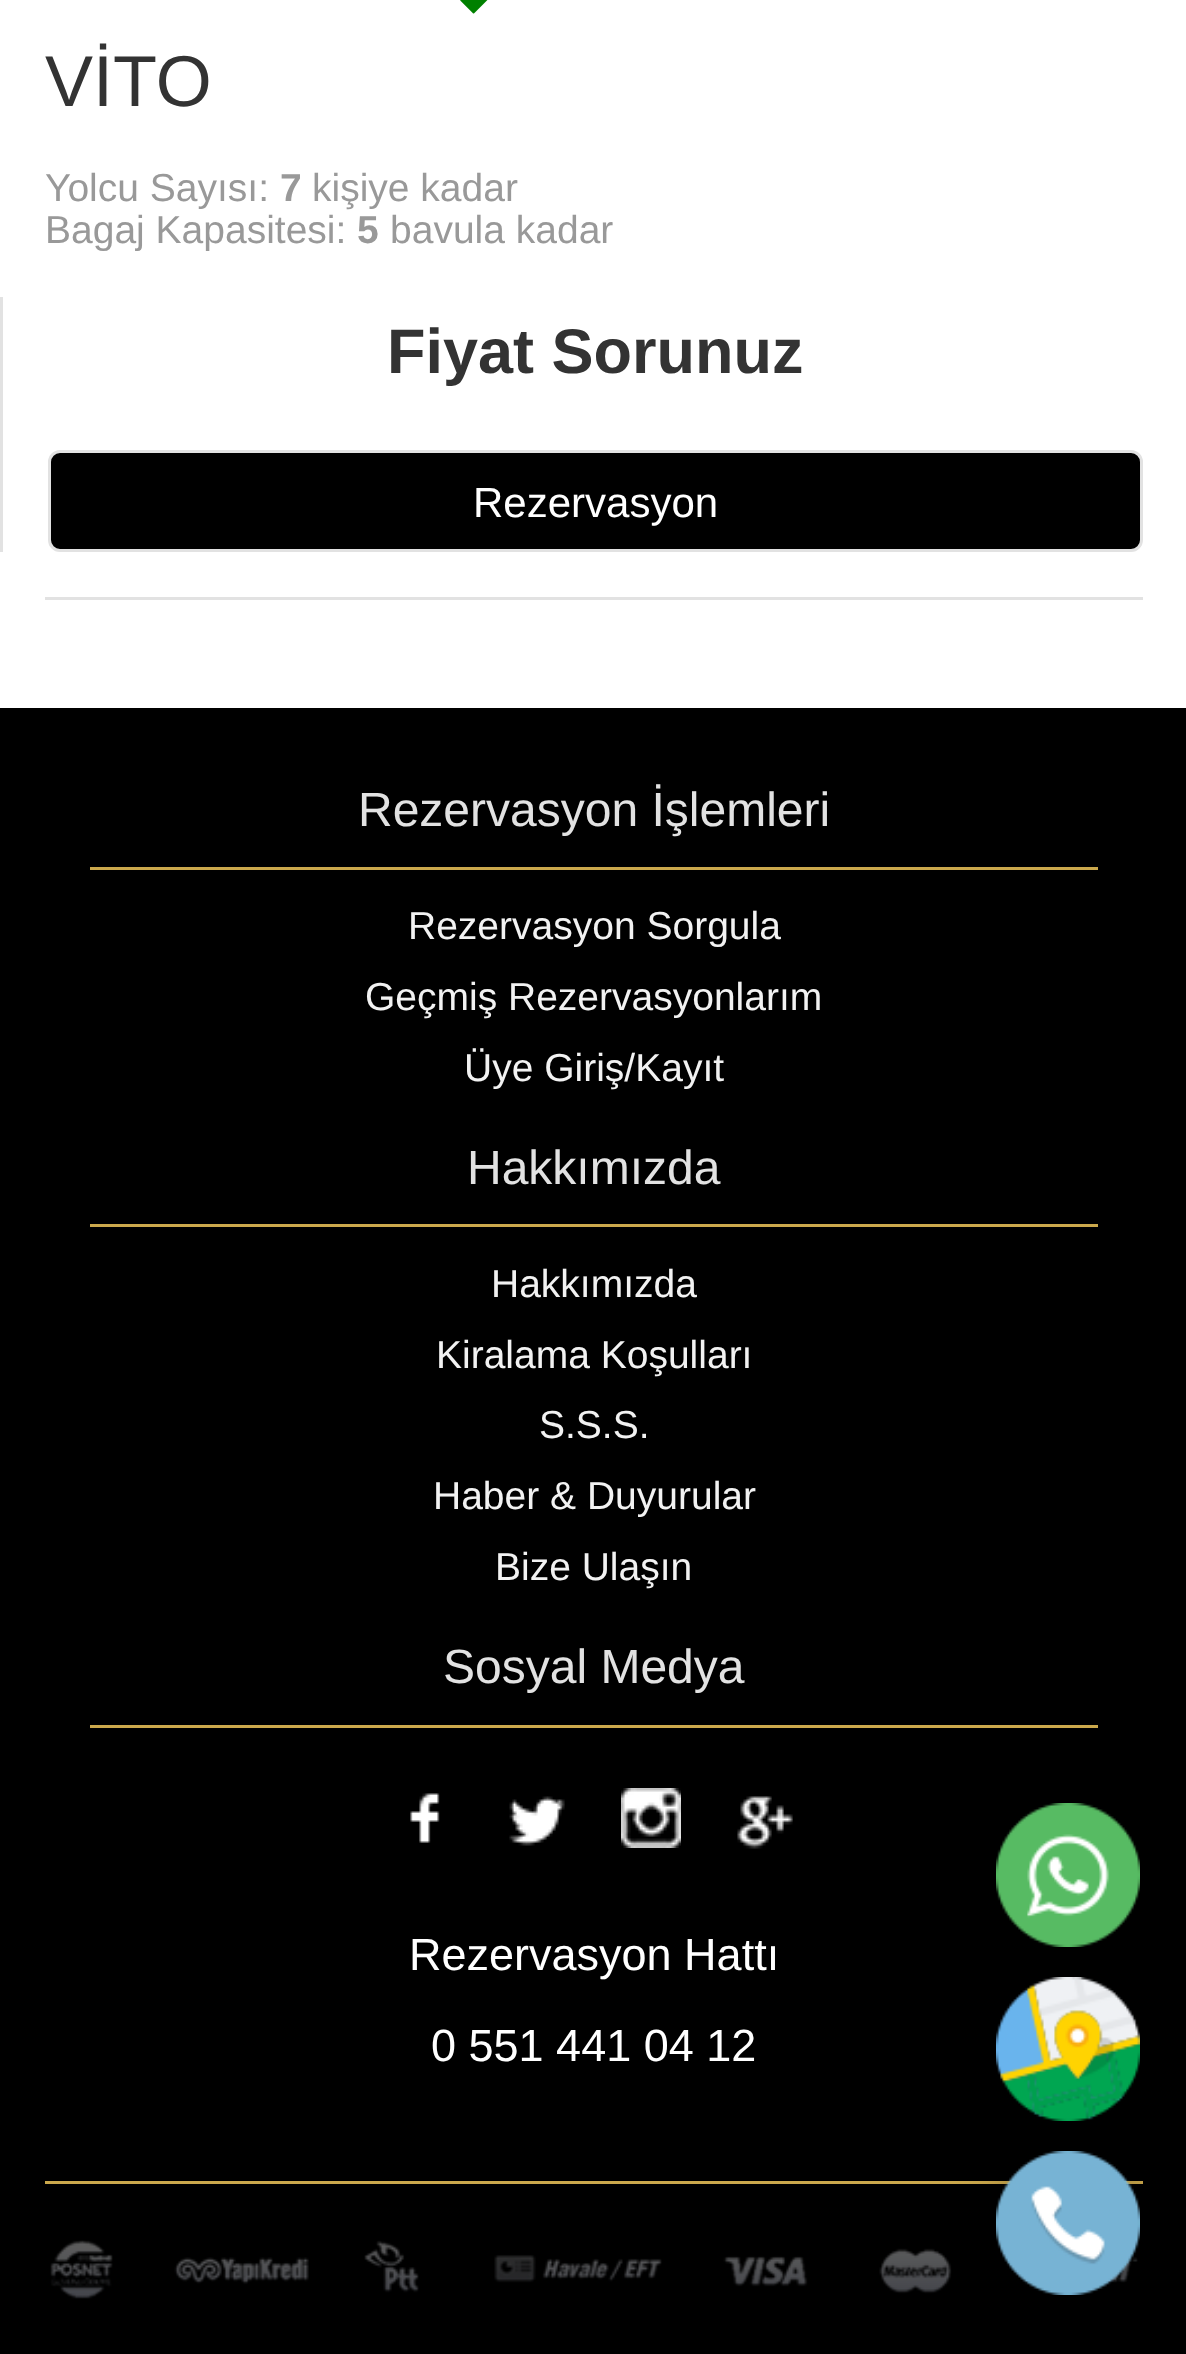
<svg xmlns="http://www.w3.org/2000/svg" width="1186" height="2354">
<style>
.a{font:72px Liberation Sans;fill:#333}
.b{font:39px Liberation Sans;fill:#999}
.c{font:bold 39px Liberation Sans;fill:#999}
.d{font:bold 63px Liberation Sans;fill:#333}
.e{font:42px Liberation Sans;fill:#fff}
.f{font:48px Liberation Sans;fill:#e2e2e2}
.g{font:39px Liberation Sans;fill:#f2f2f2}
.h{font:45px Liberation Sans;fill:#fff}
</style>
<defs>
<clipPath id="clip1"><path d="M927 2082h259v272h-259zm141 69c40 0 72 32 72 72c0 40-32 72-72 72c-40 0-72-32-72-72c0-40 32-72 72-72z" clip-rule="evenodd"/></clipPath>
</defs>
<rect width="100%" height="100%" fill="#fff"/>
<path fill="#e2e2e2" d="M45 597h1098v3H45z"/>
<image href="1.png" x="460" y="0" width="28" height="14"/>
<path fill="#e2e2e2" d="M0 297h3v255H0z"/>
<rect fill="#000" stroke="#e2e2e2" stroke-width="3" x="49.5" y="451.5" width="1092" height="99" rx="10.5"/>
<path fill="#000" d="M0 708h1186v1646H0z"/>
<path fill="#cba84c" d="M90 867h1008v3H90z"/>
<path fill="#cba84c" d="M90 1224h1008v3H90z"/>
<path fill="#cba84c" d="M90 1725h1008v3H90z"/>
<image href="2.png" x="410" y="1793" width="30" height="50"/>
<image href="3.png" x="509" y="1796" width="56" height="50"/>
<image href="4.png" x="621" y="1788" width="60" height="60"/>
<image href="5.png" x="737" y="1796" width="56" height="53"/>
<path fill="#cba84c" d="M45 2181h1098v3H45z"/>
<image href="6.png" x="50" y="2240" width="1088" height="59"/>
<image href="7.png" x="996" y="1803" width="144" height="144"/>
<g clip-path="url(#clip1)">
<rect fill="#00000040" filter="blur(22.5px)" x="996" y="2151" width="144" height="144" rx="72"/>
</g>
<image href="8.png" x="996" y="1977" width="144" height="144"/>
<image href="9.png" x="996" y="2151" width="144" height="144"/>
<text class="a" x="45" y="106">VİTO</text>
<text class="b" x="45" y="201">Yolcu Sayısı:</text>
<text class="c" x="280" y="201">7</text>
<text class="b" x="312" y="201">kişiye kadar</text>
<text class="b" x="45" y="243">Bagaj Kapasitesi:</text>
<text class="c" x="357" y="243">5</text>
<text class="b" x="390" y="243">bavula kadar</text>
<text class="d" x="387" y="373">Fiyat Sorunuz</text>
<text class="e" x="473" y="517">Rezervasyon</text>
<text class="f" x="358" y="826">Rezervasyon İşlemleri</text>
<text class="g" x="408" y="939">Rezervasyon Sorgula</text>
<text class="g" x="365" y="1010">Geçmiş Rezervasyonlarım</text>
<text class="g" x="464" y="1081">Üye Giriş/Kayıt</text>
<text class="f" x="467" y="1184">Hakkımızda</text>
<text class="g" x="491" y="1297">Hakkımızda</text>
<text class="g" x="436" y="1368">Kiralama Koşulları</text>
<text class="g" x="539" y="1438">S.S.S.</text>
<text class="g" x="433" y="1509">Haber &amp; Duyurular</text>
<text class="g" x="495" y="1580">Bize Ulaşın</text>
<text class="f" x="443" y="1683">Sosyal Medya</text>
<text class="h" x="409" y="1970">Rezervasyon Hattı</text>
<text class="h" x="431" y="2061">0 551 441 04 12</text>
</svg>
